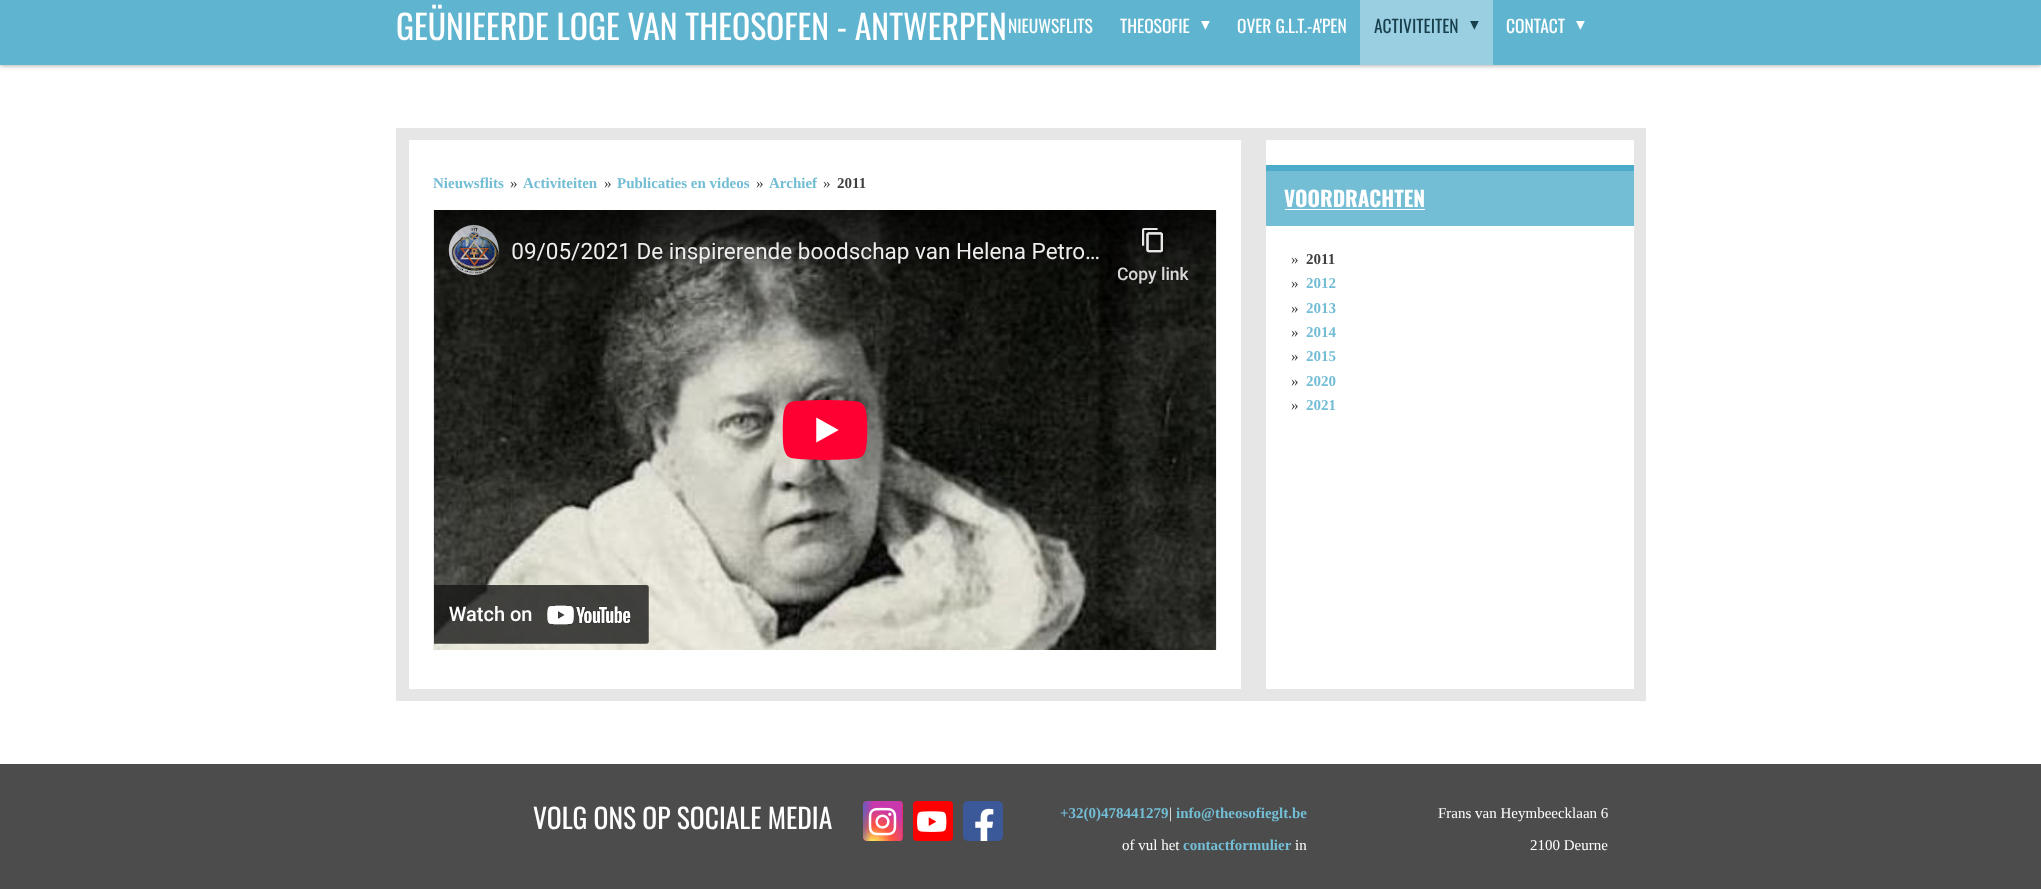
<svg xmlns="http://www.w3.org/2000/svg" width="2041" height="889">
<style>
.a{font:33.75px Oswald;fill:#fff}
.b{font:17.5px Oswald;fill:#fff}
.c{font:17.5px DejaVu Sans;fill:#fff}
.d{font:17.5px Oswald;fill:#173f4c}
.e{font:17.5px DejaVu Sans;fill:#173f4c}
.f{font:bold 15px Liberation Serif;fill:#73bdd5}
.g{font:15px Liberation Serif;fill:#404040}
.h{font:bold 15px Liberation Serif;fill:#404040}
.i{font:bold 21.25px Oswald;fill:#fff}
.j{font:27.6px Oswald;fill:#fff}
.k{font:15px Liberation Serif;fill:#fff}
</style>
<defs>
<clipPath id="clip1"><rect x="863" y="801" width="40" height="40" rx="4"/></clipPath>
<radialGradient id="g1" gradientUnits="userSpaceOnUse" cx="0" cy="0" r="1" gradientTransform="matrix(39 0 0 36 873 844)"><stop offset="0" stop-color="#fd5"/><stop offset="0.1" stop-color="#fd5"/><stop offset="0.5" stop-color="#ff543e"/><stop offset="1" stop-color="#c837ab"/></radialGradient>
<radialGradient id="g2" gradientUnits="userSpaceOnUse" cx="0" cy="0" r="1" gradientTransform="matrix(17 0 0 72 856 804)"><stop offset="0" stop-color="#3771c8"/><stop offset="0.13" stop-color="#3771c8"/><stop offset="1" stop-color="#3771c8" stop-opacity="0"/></radialGradient>
</defs>
<rect width="100%" height="100%" fill="#fff"/>
<path fill="#0000004d" filter="blur(2px)" d="M0 -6h2041v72H0z"/>
<path fill="#5fb4cf" d="M0 0h2041v65H0z"/>
<path fill="#9acfe1" d="M1360 0h133v65H1360z"/>
<path fill="#e6e6e6" d="M396 128h1250v573H396z"/>
<path fill="#fff" d="M409 140h832v549H409z"/>
<path fill="#fff" d="M1266 140h368v549H1266z"/>
<image href="1.png" x="433" y="210" width="784" height="440"/>
<path fill="#73bdd5" d="M1266 171h368v55H1266z"/>
<path fill="#4cabc9" d="M1266 165h368v6H1266z"/>
<path fill="#fff" d="M1285 209h140v1H1285z"/>
<path fill="#4c4c4c" d="M0 764h2041v125H0z"/>
<rect fill="#e1306c" x="863" y="801" width="40" height="40" rx="4"/>
<g clip-path="url(#clip1)">
<path fill="url(#g1)" d="M867 801h35v40h-35c-2 0-4-2-4-4v-32c0-2 2-4 4-4z"/>
<path fill="url(#g2)" d="M867 801h35v40h-35c-2 0-4-2-4-4v-32c0-2 2-4 4-4z"/>
</g>
<image href="2.png" x="868" y="807" width="29" height="29"/>
<rect fill="#f00" x="913" y="801" width="40" height="40" rx="4"/>
<image href="3.png" x="917" y="811" width="30" height="21"/>
<rect fill="#3b5998" x="963" y="801" width="40" height="40" rx="5"/>
<image href="4.png" x="975" y="808" width="19" height="33"/>
<text class="a" x="396" y="40">GEÜNIEERDE LOGE VAN THEOSOFEN - ANTWERPEN</text>
<text class="b" x="1008" y="33">NIEUWSFLITS</text>
<text class="b" x="1120" y="33">THEOSOFIE</text>
<text class="c" x="1201" y="30">▾</text>
<text class="b" x="1237" y="33">OVER G.L.T.-A'PEN</text>
<text class="d" x="1374" y="33">ACTIVITEITEN</text>
<text class="e" x="1470" y="30">▾</text>
<text class="b" x="1506" y="33">CONTACT</text>
<text class="c" x="1576" y="30">▾</text>
<text class="f" x="433" y="188">Nieuwsflits</text>
<text class="g" x="510" y="188">»</text>
<text class="f" x="523" y="188">Activiteiten</text>
<text class="g" x="604" y="188">»</text>
<text class="f" x="617" y="188">Publicaties en videos</text>
<text class="g" x="756" y="188">»</text>
<text class="f" x="769" y="188">Archief</text>
<text class="g" x="823" y="188">»</text>
<text class="h" x="837" y="188">2011</text>
<text class="i" x="1284" y="207">VOORDRACHTEN</text>
<text class="g" x="1291" y="264">»</text>
<text class="h" x="1306" y="264">2011</text>
<text class="g" x="1291" y="288">»</text>
<text class="f" x="1306" y="288">2012</text>
<text class="g" x="1291" y="313">»</text>
<text class="f" x="1306" y="313">2013</text>
<text class="g" x="1291" y="337">»</text>
<text class="f" x="1306" y="337">2014</text>
<text class="g" x="1291" y="361">»</text>
<text class="f" x="1306" y="361">2015</text>
<text class="g" x="1291" y="386">»</text>
<text class="f" x="1306" y="386">2020</text>
<text class="g" x="1291" y="410">»</text>
<text class="f" x="1306" y="410">2021</text>
<text class="j" x="533" y="829">VOLG ONS OP SOCIALE MEDIA</text>
<text class="f" x="1060" y="818">+32(0)478441279</text>
<text class="k" x="1169" y="818">|</text>
<text class="f" x="1176" y="818">info@theosofieglt.be</text>
<text class="k" x="1122" y="850">of vul het</text>
<text class="f" x="1183" y="850">contactformulier</text>
<text class="k" x="1295" y="850">in</text>
<text class="k" x="1438" y="818">Frans van Heymbeecklaan 6</text>
<text class="k" x="1530" y="850">2100 Deurne</text>
</svg>
